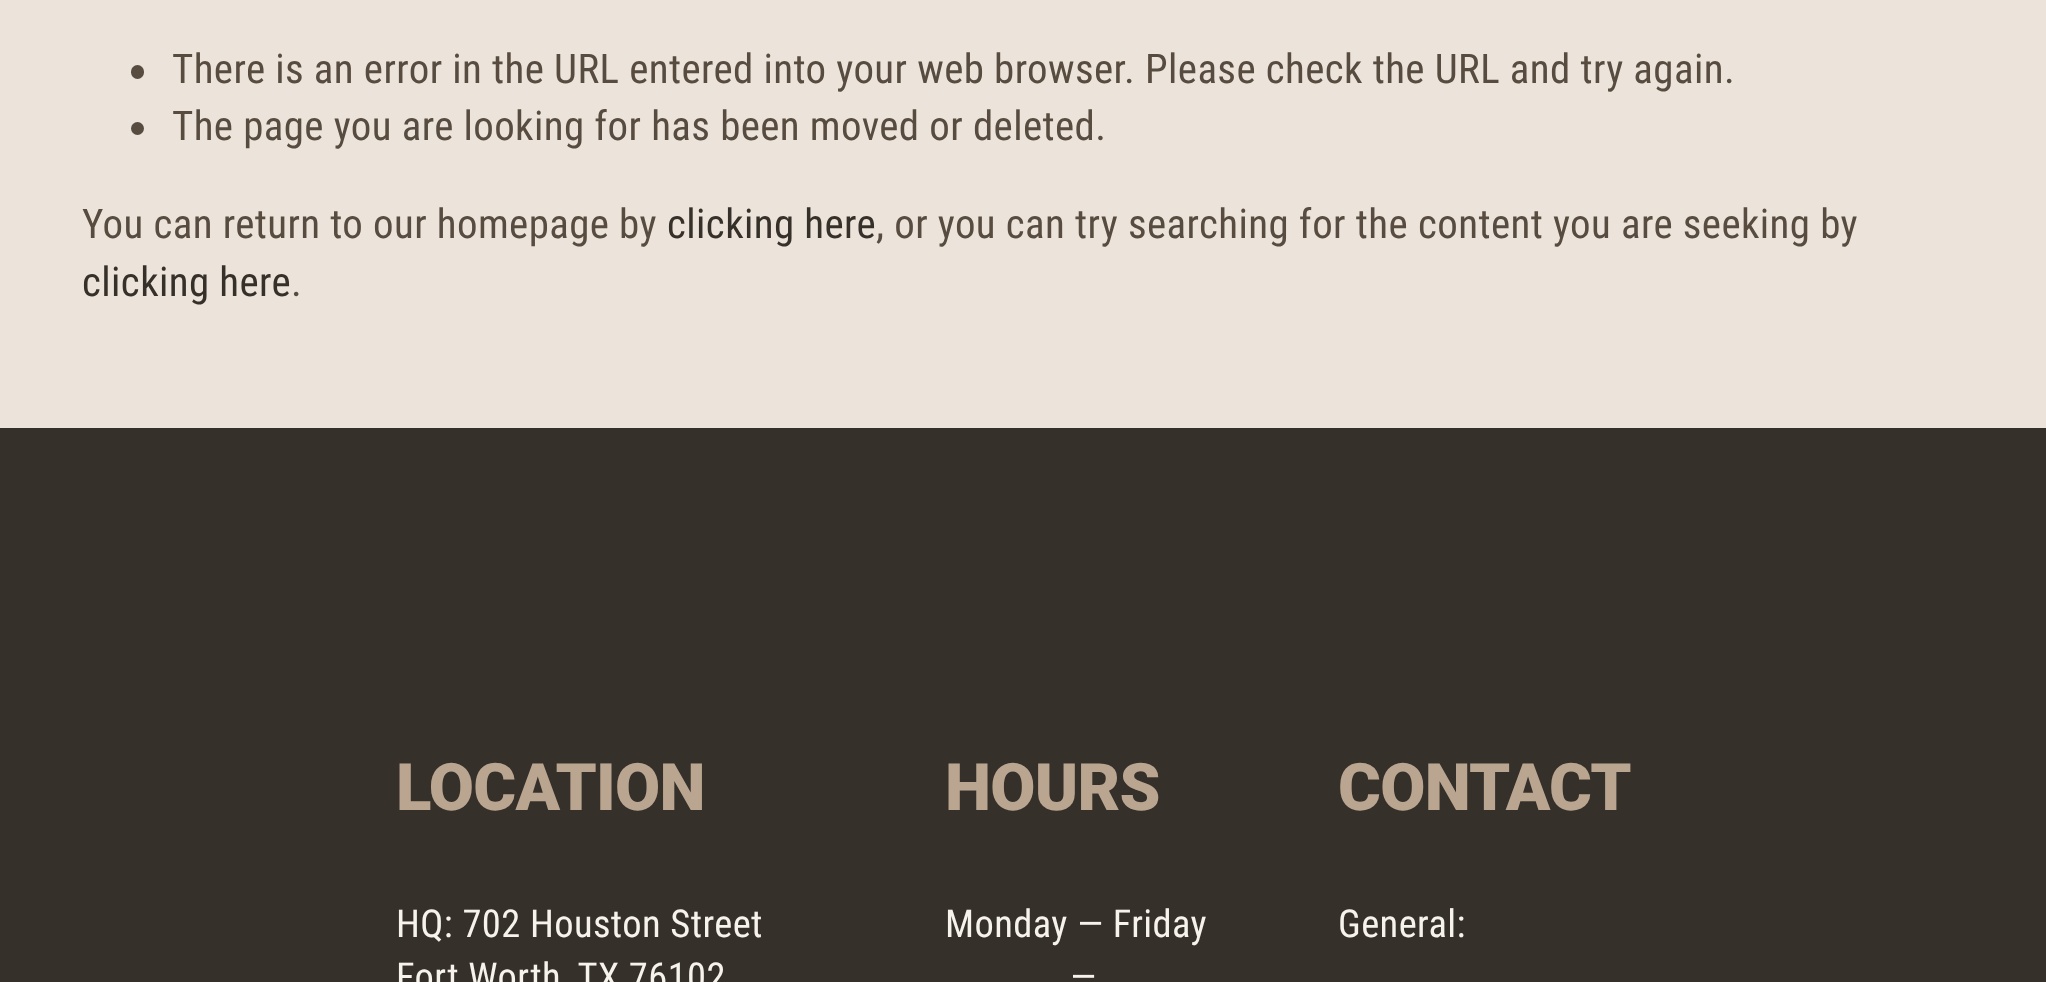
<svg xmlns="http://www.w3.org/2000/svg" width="2046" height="982">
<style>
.a{font:40.9px Roboto Condensed;letter-spacing:0.4px;fill:#574c3f}
.b{font:40.9px Roboto Condensed;letter-spacing:0.4px;fill:#36302a}
.c{font:900 65.5px Roboto;letter-spacing:-0.75px;fill:#b9a590}
.d{font:38.5px Roboto Condensed;letter-spacing:0.4px;fill:#f6f3ec}
</style>
<rect width="100%" height="100%" fill="#ece4da"/>
<rect fill="#574c3f" x="131" y="65" width="13" height="14" rx="6.5"/>
<circle fill="#574c3f" cx="137.5" cy="128.5" r="6.5"/>
<path fill="#36302a" d="M0 428h2046v554H0z"/>
<text class="a" x="172" y="83">There is an error in the URL entered into your web browser. Please check the URL and try again.</text>
<text class="a" x="172" y="140">The page you are looking for has been moved or deleted.</text>
<text class="a" x="82" y="238">You can return to our homepage by</text>
<text class="b" x="667" y="238">clicking here</text>
<text class="a" x="876" y="238">, or you can try searching for the</text>
<text class="a" x="1418" y="238">content you are seeking by</text>
<text class="b" x="82" y="296">clicking here</text>
<text class="a" x="291" y="296">.</text>
<text class="c" x="396" y="810">LOCATION</text>
<text class="d" x="396" y="937">HQ: 702 Houston Street</text>
<text class="d" x="396" y="990">Fort Worth, TX 76102</text>
<text class="c" x="945" y="810">HOURS</text>
<text class="d" x="945" y="937">Monday — Friday</text>
<text class="d" x="1070" y="990">—</text>
<text class="c" x="1338" y="810">CONTACT</text>
<text class="d" x="1338" y="937">General:</text>
</svg>
